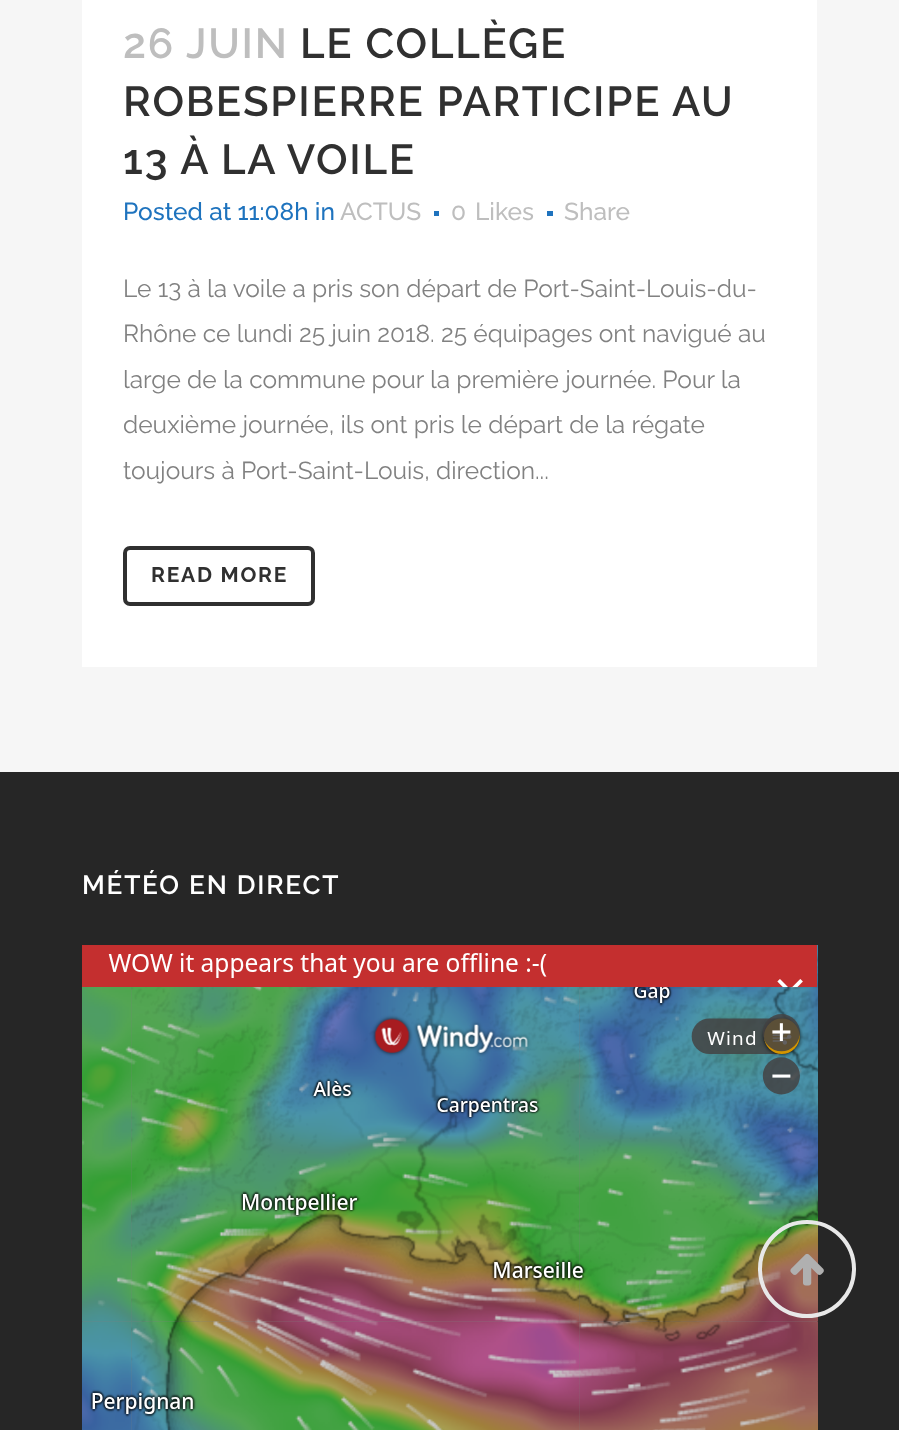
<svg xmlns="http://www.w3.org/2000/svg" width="899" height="1430">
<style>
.a{font:600 42px Raleway;letter-spacing:1.75px;fill:#bebebe}
.b{font:600 42px Raleway;letter-spacing:1.75px;fill:#303030}
.c{font:500 24.5px Raleway;fill:#1e73be}
.d{font:500 24.5px Raleway;fill:#bebebe}
.e{font:24.5px Raleway;fill:#818181}
.f{font:bold 21px Raleway;letter-spacing:1.75px;fill:#303030}
.g{font:600 26.25px Raleway;letter-spacing:1.75px;fill:#fff}
</style>
<rect width="100%" height="100%" fill="#f6f6f6"/>
<path fill="#fff" d="M82 0h735v667H82z"/>
<path fill="#1e73be" d="M434 211h5v5H434z"/>
<path fill="#1e73be" d="M547 211h6v5H547z"/>
<rect fill="none" stroke="#303030" stroke-width="4" x="125" y="548" width="188" height="56" rx="5"/>
<path fill="#262626" d="M0 772h899v658H0z"/>
<image href="1.png" x="82" y="945" width="736" height="485"/>
<circle fill="none" stroke="#e8e8e8" stroke-width="4" cx="807" cy="1269" r="47"/>
<image href="2.png" x="790" y="1253" width="34" height="33"/>
<text class="a" x="123" y="58">26 JUIN</text>
<text class="b" x="300" y="58">LE COLLÈGE</text>
<text class="b" x="123" y="116">ROBESPIERRE PARTICIPE AU</text>
<text class="b" x="123" y="174">13 À LA VOILE</text>
<text class="c" x="123" y="220">Posted at 11:08h in</text>
<text class="d" x="340" y="220">ACTUS</text>
<text class="d" x="451" y="220">0</text>
<text class="d" x="475" y="220">Likes</text>
<text class="d" x="564" y="220">Share</text>
<text class="e" x="123" y="297">Le 13 à la voile a pris son départ de Port-Saint-Louis-du-</text>
<text class="e" x="123" y="342">Rhône ce lundi 25 juin 2018. 25 équipages ont navigué au</text>
<text class="e" x="123" y="388">large de la commune pour la première journée. Pour la</text>
<text class="e" x="123" y="433">deuxième journée, ils ont pris le départ de la régate</text>
<text class="e" x="123" y="479">toujours à Port-Saint-Louis, direction...</text>
<text class="f" x="151" y="582">READ MORE</text>
<text class="g" x="82" y="894">MÉTÉO EN DIRECT</text>
</svg>
